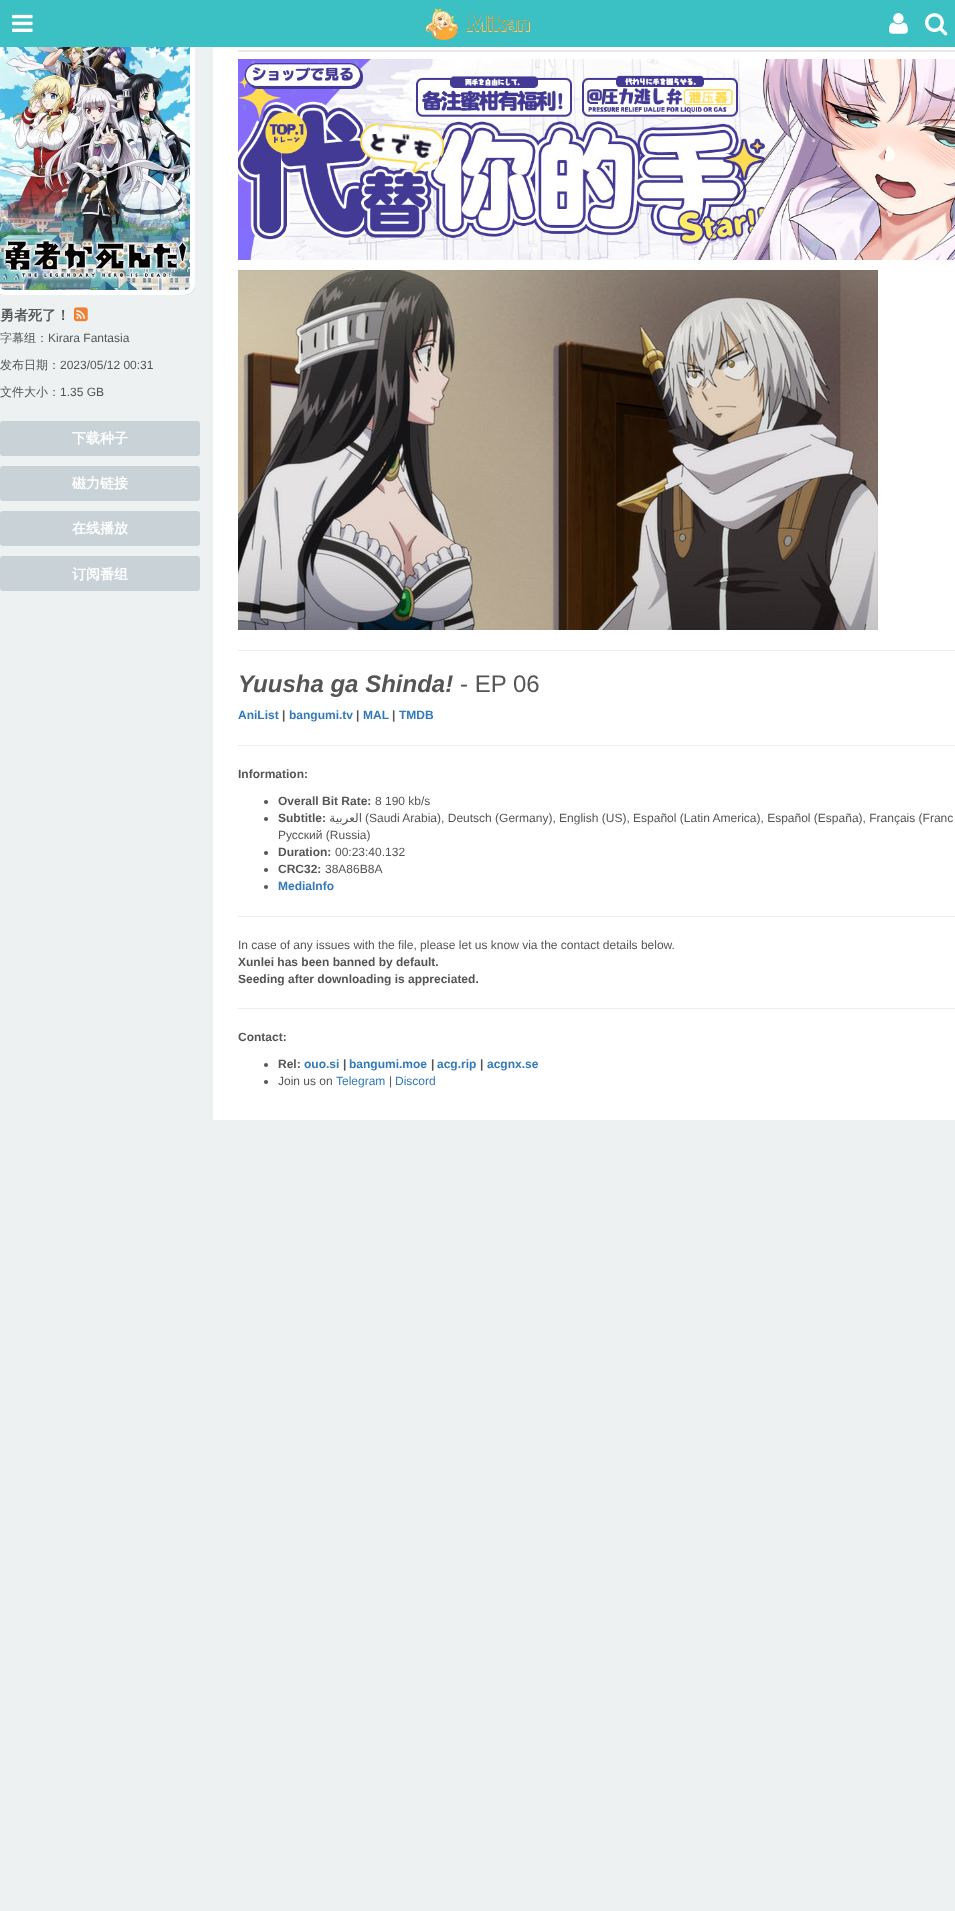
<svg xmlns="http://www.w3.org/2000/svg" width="955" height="1911">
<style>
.a{font:bold 14px WenQuanYi Zen Hei;fill:#555}
.b{font:500 12px WenQuanYi Zen Hei;fill:#555}
.c{font:12px Liberation Sans;fill:#555}
.d{font:bold 14px WenQuanYi Zen Hei;fill:#fff}
.e{font:italic bold 24px Liberation Sans;fill:#555}
.f{font:24px Liberation Sans;fill:#555}
.g{font:bold 12px Liberation Sans;fill:#337ab7}
.h{font:bold 12px Liberation Sans;fill:#555}
.i{font:12px DejaVu Sans;direction:rtl;fill:#555}
.j{font:12px Liberation Sans;fill:#337ab7}
</style>
<rect width="100%" height="100%" fill="#edf1f2"/>
<image href="6.png" x="0" y="47" width="195" height="248"/>
<rect fill="none" stroke="#fff" stroke-width="5" x="-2.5" y="17.5" width="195" height="275" rx="7.5"/>
<path fill="#3bc0c3" d="M0 0h955v47H0z"/>
<image href="1.png" x="12" y="14" width="21" height="18"/>
<image href="2.png" x="425" y="8" width="34" height="33"/>
<image href="3.png" x="466" y="15" width="65" height="18"/>
<image href="4.png" x="889" y="13" width="19" height="21"/>
<image href="5.png" x="925" y="13" width="23" height="23"/>
<image href="7.png" x="74" y="307" width="14" height="15"/>
<rect fill="#c8d2d7" y="421" width="200" height="35" rx="3"/>
<rect fill="#c8d2d7" y="466" width="200" height="35" rx="3"/>
<rect fill="#c8d2d7" y="511" width="200" height="35" rx="3"/>
<rect fill="#c8d2d7" y="556" width="200" height="35" rx="3"/>
<path fill="#fff" d="M213 47h742v1073H213z"/>
<path fill="#e8e8e8" d="M238 50h717v2H238z"/>
<image href="8.png" x="238" y="59" width="717" height="201"/>
<image href="9.png" x="238" y="270" width="640" height="360"/>
<path fill="#eee" d="M238 650h717v1H238z"/>
<path fill="#eee" d="M238 745h717v1H238z"/>
<circle fill="#555" cx="266" cy="802" r="2"/>
<circle fill="#555" cx="266" cy="819" r="2"/>
<circle fill="#555" cx="266" cy="853" r="2"/>
<circle fill="#555" cx="266" cy="870" r="2"/>
<circle fill="#555" cx="266" cy="887" r="2"/>
<path fill="#eee" d="M238 916h717v1H238z"/>
<path fill="#eee" d="M238 1008h717v1H238z"/>
<circle fill="#555" cx="266" cy="1065" r="2"/>
<circle fill="#555" cx="266" cy="1082" r="2"/>
<text class="a" x="0" y="320">勇者死了！</text>
<text class="b" x="0" y="342">字幕组：</text>
<text class="c" x="48" y="342">Kirara Fantasia</text>
<text class="b" x="0" y="369">发布日期：</text>
<text class="c" x="60" y="369">2023/05/12 00:31</text>
<text class="b" x="0" y="396">文件大小：</text>
<text class="c" x="60" y="396">1.35 GB</text>
<text class="d" x="72" y="443">下载种子</text>
<text class="d" x="72" y="488">磁力链接</text>
<text class="d" x="72" y="533">在线播放</text>
<text class="d" x="72" y="579">订阅番组</text>
<text class="e" x="238" y="692">Yuusha ga Shinda!</text>
<text class="f" x="460" y="692">- EP 06</text>
<text class="g" x="238" y="719">AniList</text>
<text class="h" x="282" y="719">|</text>
<text class="g" x="289" y="719">bangumi.tv</text>
<text class="h" x="356" y="719">|</text>
<text class="g" x="363" y="719">MAL</text>
<text class="h" x="392" y="719">|</text>
<text class="g" x="399" y="719">TMDB</text>
<text class="h" x="238" y="778">Information:</text>
<text class="h" x="278" y="805">Overall Bit Rate:</text>
<text class="c" x="375" y="805">8 190 kb/s</text>
<text class="h" x="278" y="822">Subtitle:</text>
<text class="i" x="362" y="822">العربية</text>
<text class="c" x="365" y="822">(Saudi Arabia), Deutsch (Germany), English (US), Español (Latin America), Español (España), Français (Franc</text>
<text class="c" x="278" y="839">Русский (Russia)</text>
<text class="h" x="278" y="856">Duration:</text>
<text class="c" x="335" y="856">00:23:40.132</text>
<text class="h" x="278" y="873">CRC32:</text>
<text class="c" x="325" y="873">38A86B8A</text>
<text class="g" x="278" y="890">MediaInfo</text>
<text class="c" x="238" y="949">In case of any issues with the file, please let us know via the contact details below.</text>
<text class="h" x="238" y="966">Xunlei has been banned by default.</text>
<text class="h" x="238" y="983">Seeding after downloading is appreciated.</text>
<text class="h" x="238" y="1041">Contact:</text>
<text class="h" x="278" y="1068">Rel:</text>
<text class="g" x="304" y="1068">ouo.si</text>
<text class="h" x="343" y="1068">|</text>
<text class="g" x="349" y="1068">bangumi.moe</text>
<text class="h" x="431" y="1068">|</text>
<text class="g" x="437" y="1068">acg.rip</text>
<text class="h" x="480" y="1068">|</text>
<text class="g" x="487" y="1068">acgnx.se</text>
<text class="c" x="278" y="1085">Join us on</text>
<text class="j" x="336" y="1085">Telegram</text>
<text class="c" x="389" y="1085">|</text>
<text class="j" x="395" y="1085">Discord</text>
</svg>
